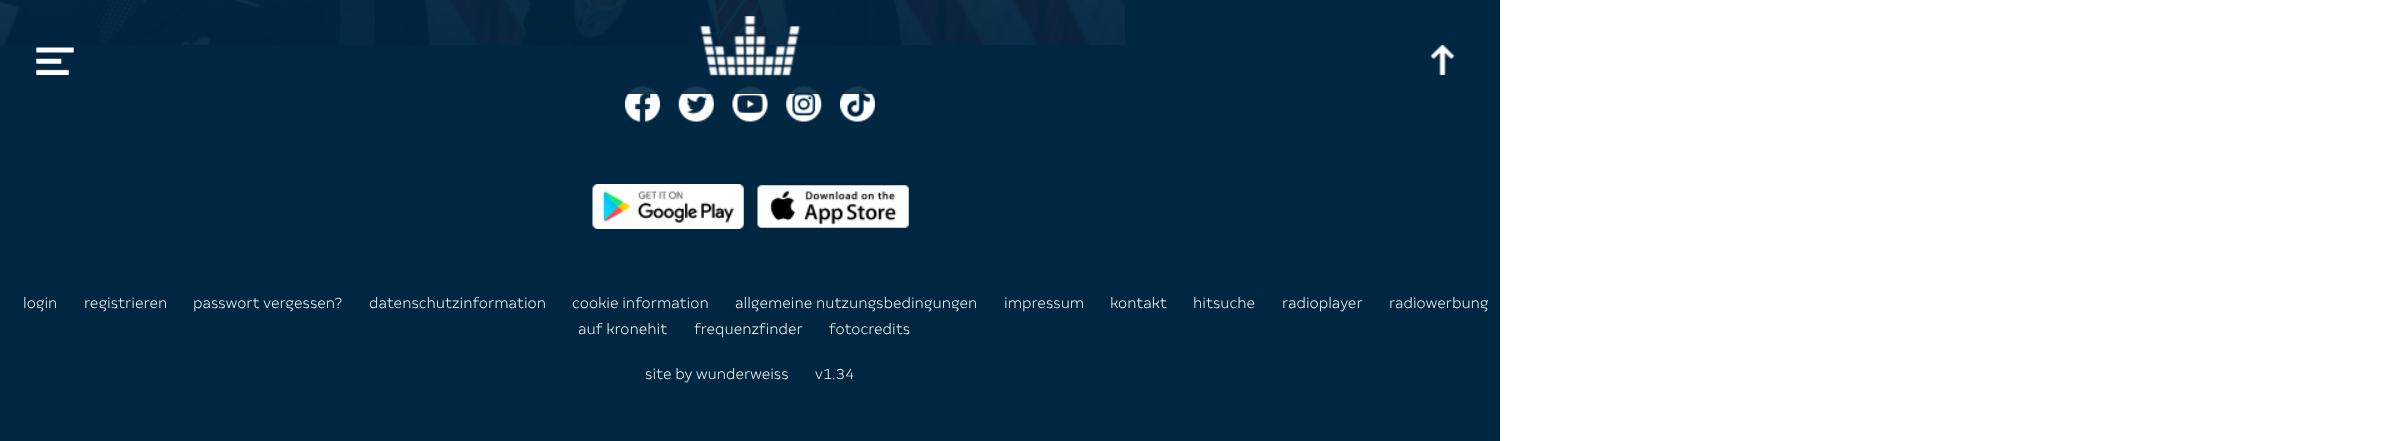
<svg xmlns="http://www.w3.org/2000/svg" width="2385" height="441">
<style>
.a{font:300 16.25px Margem;fill:#fff}
</style>
<rect width="100%" height="100%" fill="#fff"/>
<image href="4.png" x="0" y="0" width="375" height="45"/>
<image href="5.png" x="375" y="0" width="750" height="45"/>
<path fill="#002742" d="M0 45h1500v396H0z"/>
<image href="6.png" x="625" y="86" width="35" height="36"/>
<image href="7.png" x="678" y="86" width="36" height="36"/>
<image href="8.png" x="732" y="86" width="36" height="36"/>
<image href="9.png" x="786" y="86" width="36" height="36"/>
<image href="10.png" x="840" y="86" width="35" height="36"/>
<path fill="#002742e6" d="M0 0h1125v94H0z"/>
<image href="1.png" x="36" y="47" width="38" height="28"/>
<image href="2.png" x="699" y="16" width="102" height="60"/>
<image href="3.png" x="1430" y="45" width="25" height="30"/>
<path fill="#002742" d="M1125 0h375v45H1125z"/>
<image href="11.png" x="592" y="184" width="152" height="45"/>
<image href="12.png" x="757" y="185" width="152" height="43"/>
<text class="a" x="23" y="308">login</text>
<text class="a" x="84" y="308">registrieren</text>
<text class="a" x="193" y="308">passwort vergessen?</text>
<text class="a" x="369" y="308">datenschutzinformation</text>
<text class="a" x="572" y="308">cookie information</text>
<text class="a" x="735" y="308">allgemeine nutzungsbedingungen</text>
<text class="a" x="1004" y="308">impressum</text>
<text class="a" x="1110" y="308">kontakt</text>
<text class="a" x="1193" y="308">hitsuche</text>
<text class="a" x="1282" y="308">radioplayer</text>
<text class="a" x="1389" y="308">radiowerbung</text>
<text class="a" x="578" y="334">auf kronehit</text>
<text class="a" x="694" y="334">frequenzfinder</text>
<text class="a" x="829" y="334">fotocredits</text>
<text class="a" x="645" y="379">site by wunderweiss</text>
<text class="a" x="815" y="379">v1.34</text>
</svg>
